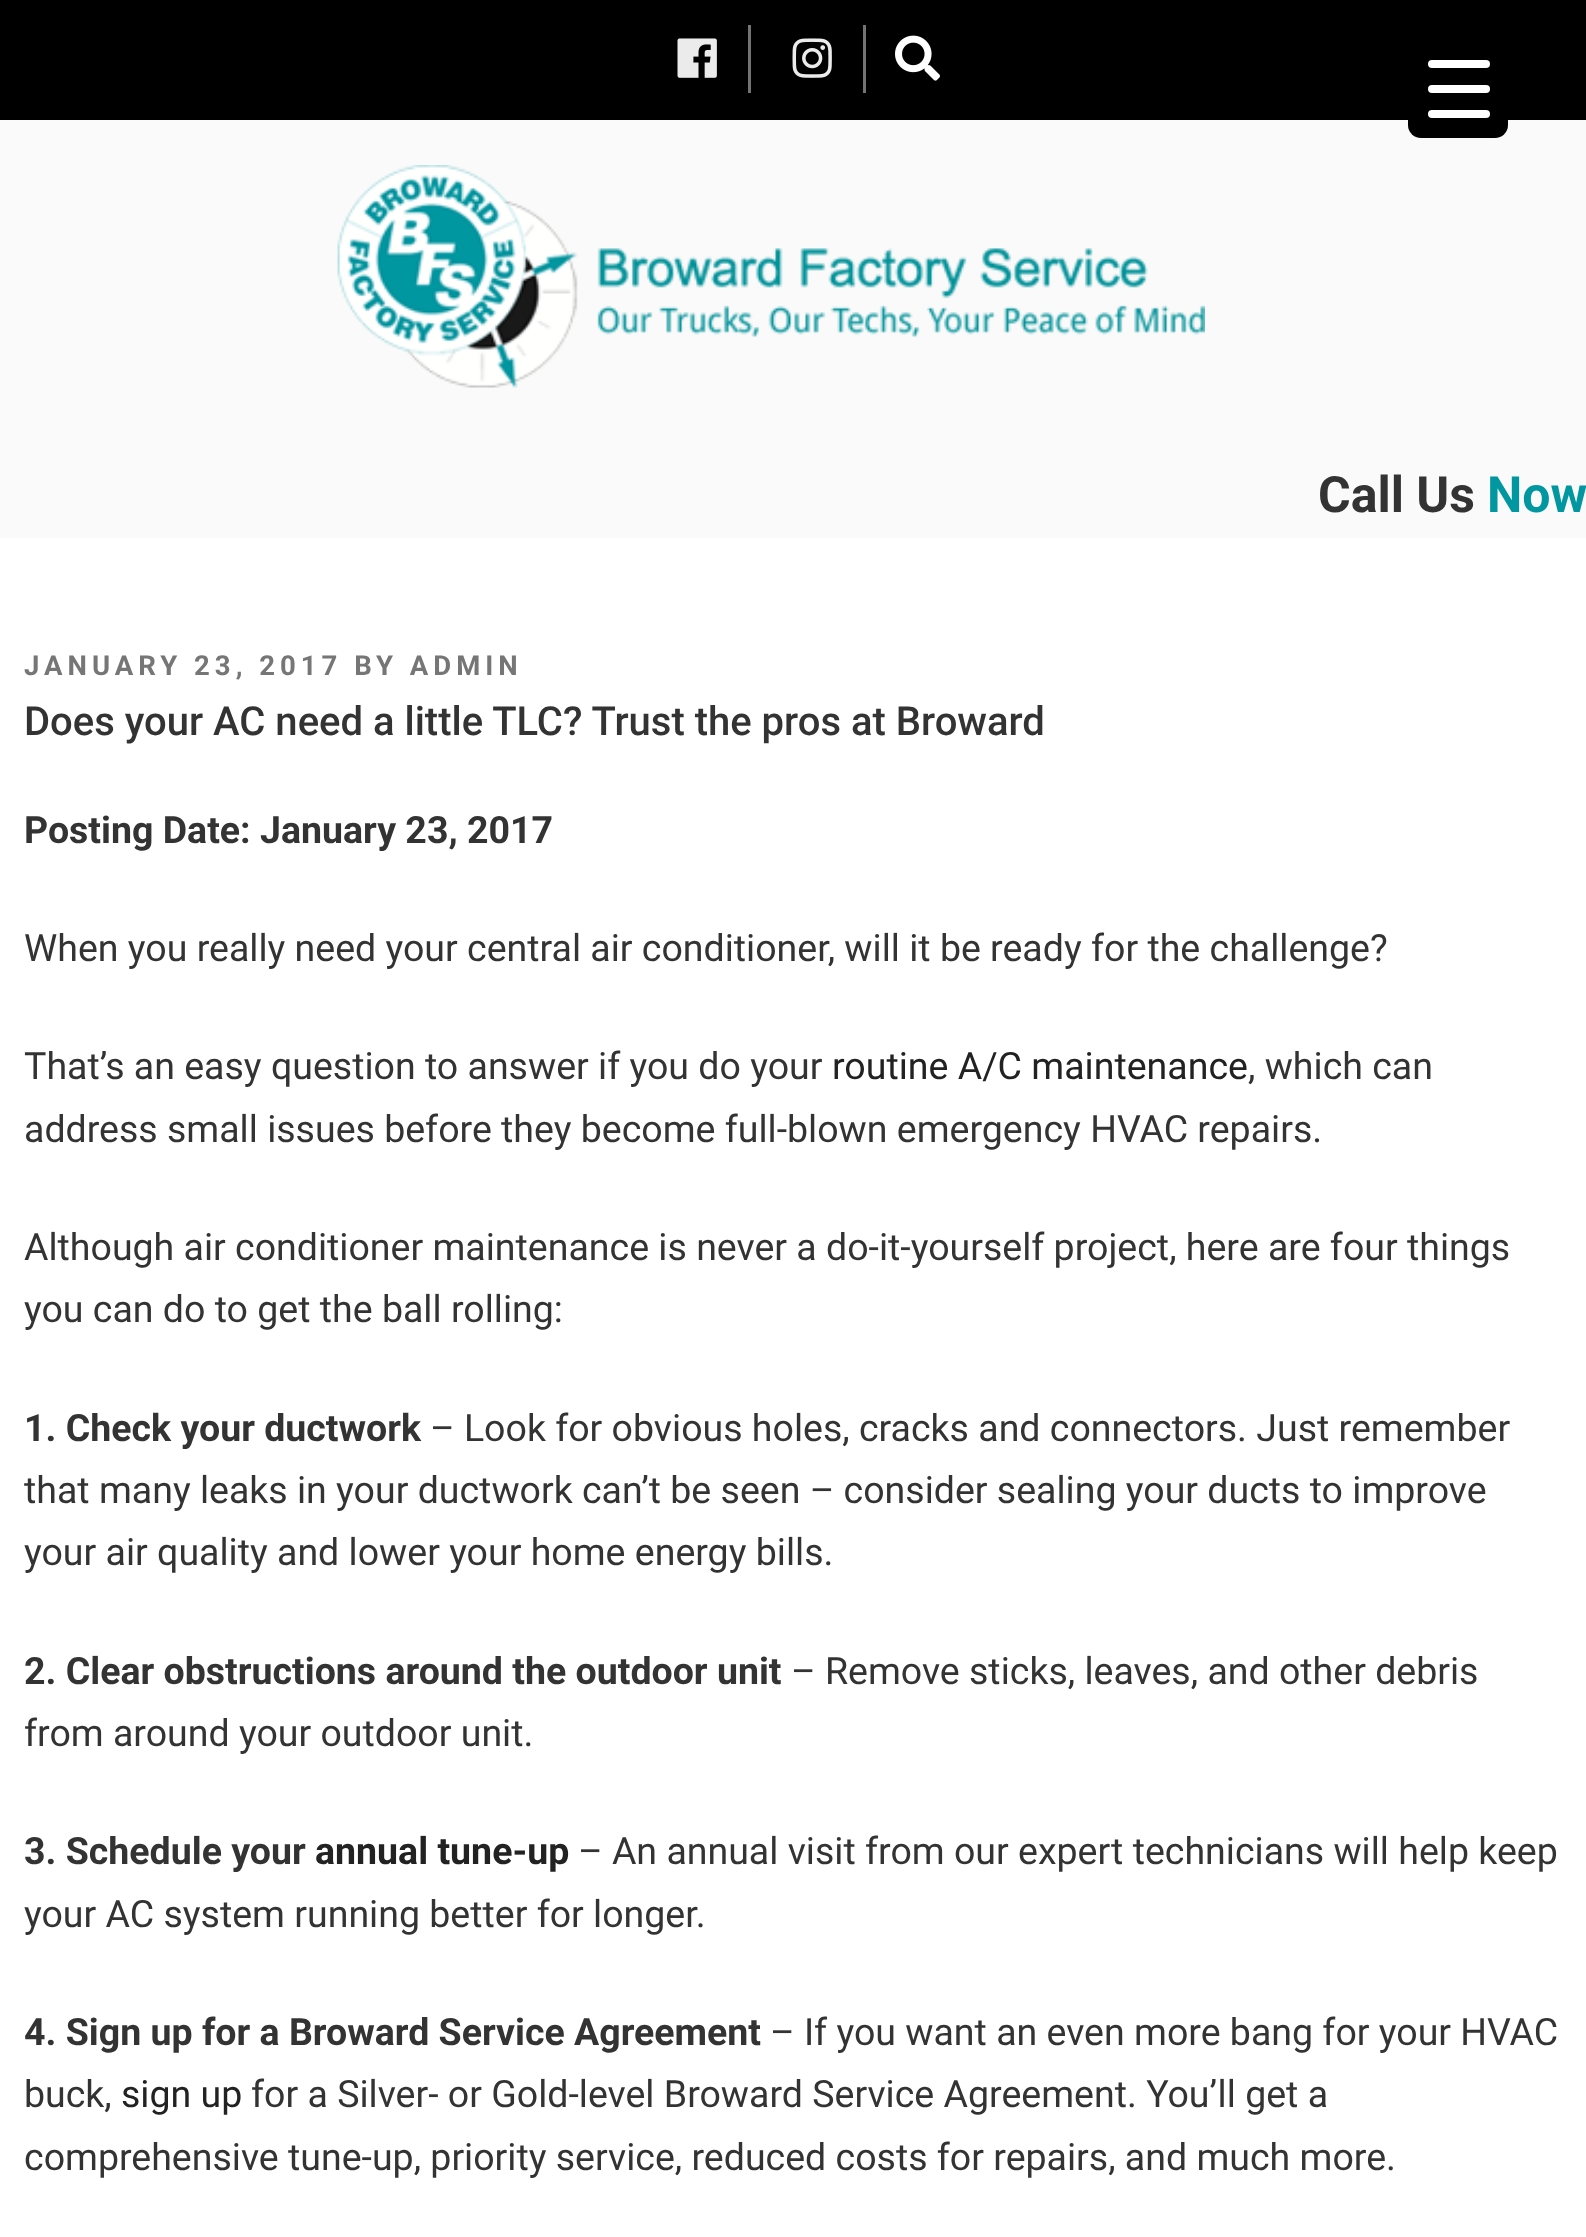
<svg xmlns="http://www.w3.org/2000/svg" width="1586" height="2237">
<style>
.a{font:bold 50px Roboto;fill:#333}
.b{font:bold 50px Roboto;fill:#0097a1}
.c{font:bold 27.5px Roboto;letter-spacing:5px;fill:#767676}
.d{font:500 40px Roboto;fill:#333}
.e{font:bold 37.5px Roboto;fill:#333}
.f{font:37.5px Roboto;fill:#333}
.g{font:37.5px Roboto;fill:#222}
.h{font:bold 37.5px Roboto;fill:#222}
</style>
<rect width="100%" height="100%" fill="#fff"/>
<path fill="#000" d="M0 0h1586v120H0z"/>
<path fill="#fafafa" d="M0 120h1586v418H0z"/>
<rect fill="#000" x="1408" y="38" width="100" height="100" rx="13"/>
<rect fill="#fff" x="1428" y="85" width="62" height="8" rx="4"/>
<rect fill="#fff" x="1428" y="60" width="62" height="8" rx="4"/>
<rect fill="#fff" x="1428" y="110" width="62" height="8" rx="4"/>
<path fill="#737373" d="M748 25h3v68H748z"/>
<image href="1.png" x="677" y="38" width="40" height="40"/>
<path fill="#737373" d="M863 25h3v68H863z"/>
<image href="2.png" x="792" y="38" width="40" height="40"/>
<image href="3.png" x="895" y="35" width="45" height="46"/>
<image href="4.png" x="337" y="165" width="868" height="223"/>
<text class="a" x="1318" y="512">Call Us</text>
<text class="b" x="1487" y="512">Now</text>
<text class="c" x="24" y="675">JANUARY 23, 2017 BY ADMIN</text>
<text class="d" x="24" y="735">Does your AC need a little TLC? Trust the pros at Broward</text>
<text class="e" x="24" y="843">Posting Date: January 23, 2017</text>
<text class="f" x="24" y="961">When you really need your central air conditioner, will it be ready for the challenge?</text>
<text class="f" x="24" y="1079">That’s an easy question to answer if you do your</text>
<text class="g" x="832" y="1079">routine A/C maintenance</text>
<text class="f" x="1248" y="1079">, which can</text>
<text class="f" x="24" y="1142">address small issues before they become full-blown emergency HVAC repairs.</text>
<text class="f" x="24" y="1260">Although air conditioner maintenance is never a do-it-yourself project, here are four things</text>
<text class="f" x="24" y="1322">you can do to get the ball rolling:</text>
<text class="e" x="24" y="1441">1. Check your ductwork</text>
<text class="f" x="430" y="1441">– Look for obvious holes, cracks and connectors. Just remember</text>
<text class="f" x="24" y="1503">that many leaks in your ductwork can’t be seen – consider sealing your ducts to improve</text>
<text class="f" x="24" y="1565">your air quality and lower your home energy bills.</text>
<text class="e" x="24" y="1684">2. Clear obstructions around the outdoor unit</text>
<text class="f" x="791" y="1684">– Remove sticks, leaves, and other debris</text>
<text class="f" x="24" y="1746">from around your outdoor unit.</text>
<text class="e" x="24" y="1864">3. Schedule your</text>
<text class="h" x="315" y="1864">annual tune-up</text>
<text class="f" x="578" y="1864">– An annual visit from our expert technicians will help keep</text>
<text class="f" x="24" y="1927">your AC system running better for longer.</text>
<text class="e" x="24" y="2045">4. Sign up for a Broward Service Agreement</text>
<text class="f" x="770" y="2045">– If you want an even more bang for your HVAC</text>
<text class="f" x="24" y="2107">buck,</text>
<text class="g" x="121" y="2107">sign up</text>
<text class="f" x="251" y="2107">for a Silver- or Gold-level Broward Service Agreement. You’ll get a</text>
<text class="f" x="24" y="2170">comprehensive tune-up, priority service, reduced costs for repairs, and much more.</text>
</svg>
